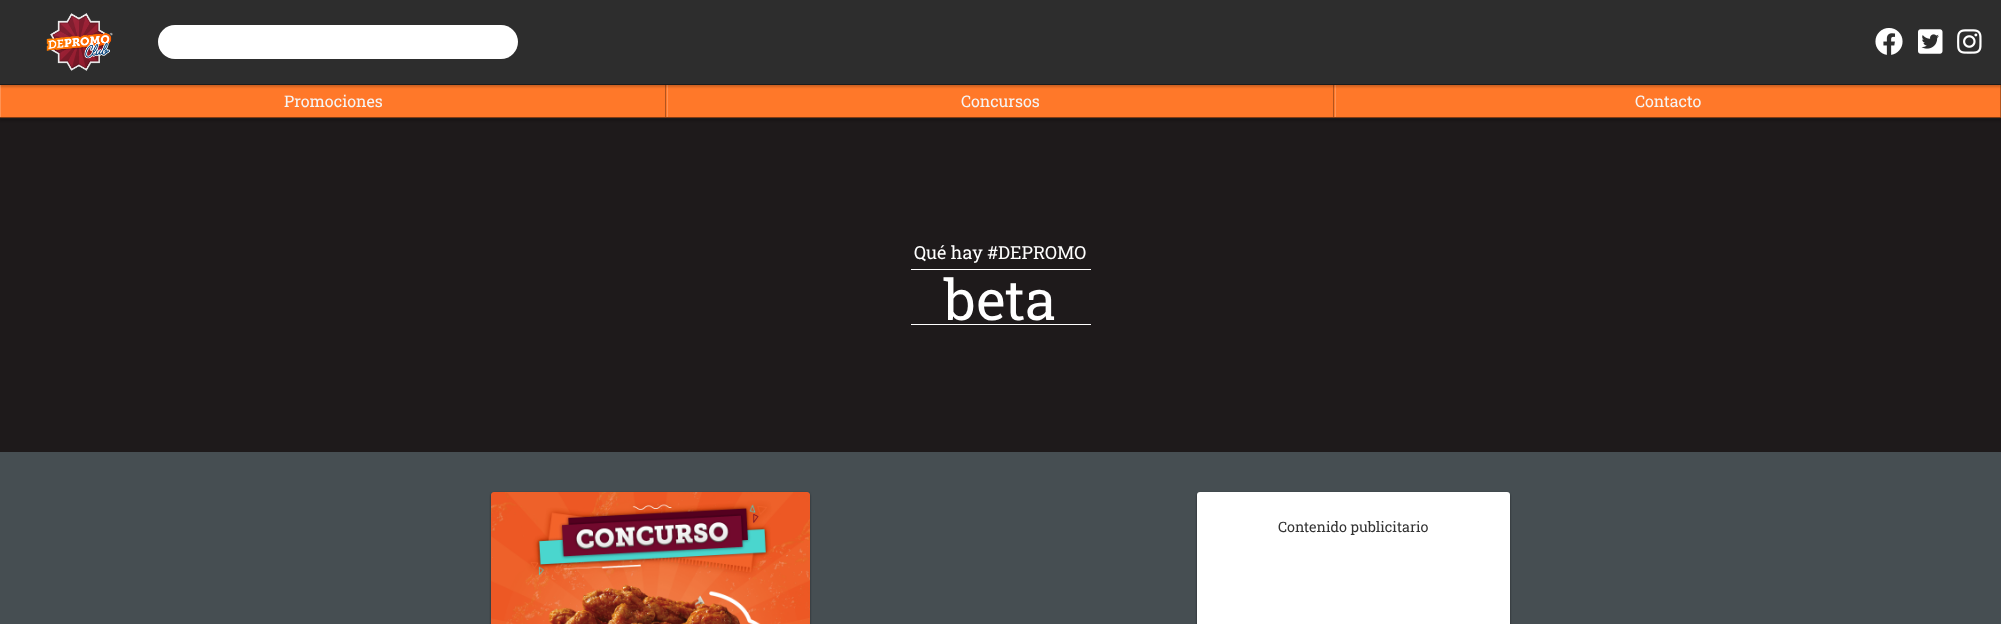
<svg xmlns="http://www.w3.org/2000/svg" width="2001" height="624">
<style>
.a{font:16px Roboto Slab;fill:#f5f5f5}
.b{font:18px Roboto Slab;fill:#fff}
.c{font:56px Roboto Slab;fill:#fff}
.d{font:14.4px Roboto Slab;fill:#333}
</style>
<rect width="100%" height="100%" fill="#464e52"/>
<path fill="#1e1a1b" d="M0 119h2001v333H0z"/>
<path fill="#00000033" filter="blur(1px)" d="M0 87h2001v34H0z"/>
<path fill="#ff7829" d="M1 85h1999v32H1z"/>
<path fill="#b3541d" d="M665 85h1v32H665z"/>
<path fill="#ff9354" d="M0 85h1v32H0z"/>
<path fill="#b3541d" d="M1333 85h1v32H1333z"/>
<path fill="#ff9354" d="M667 85h1v32H667z"/>
<path fill="#b3541d" d="M2000 85h1v32H2000z"/>
<path fill="#ff9354" d="M1335 85h1v32H1335z"/>
<path fill="#00000033" filter="blur(1px)" d="M0 2h2001v85H0z"/>
<path fill="#1b1b1b" d="M0 84h2001v1H0z"/>
<path fill="#2d2d2d" d="M0 0h2001v84H0z"/>
<image href="1.png" x="46" y="13" width="67" height="58"/>
<rect fill="#fff" x="158" y="25" width="360" height="34" rx="17"/>
<image href="2.png" x="1875" y="28" width="28" height="27"/>
<image href="3.png" x="1918" y="29" width="25" height="25"/>
<image href="4.png" x="1957" y="29" width="25" height="25"/>
<path fill="#1b1b1b" d="M0 118h2001v1H0z"/>
<path fill="#803c15" d="M0 117h2001v1H0z"/>
<path fill="#fff" d="M911 269h180v1H911z"/>
<path fill="#fff" d="M911 324h180v1H911z"/>
<rect fill="#00000080" filter="blur(1px)" x="491" y="493" width="319" height="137" rx="3"/>
<image href="5.png" x="491" y="492" width="319" height="132"/>
<rect fill="#00000080" filter="blur(1px)" x="1197" y="493" width="313" height="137" rx="3"/>
<rect fill="#fff" x="1197" y="492" width="313" height="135" rx="3"/>
<text class="a" x="284" y="107">Promociones</text>
<text class="a" x="961" y="107">Concursos</text>
<text class="a" x="1635" y="107">Contacto</text>
<text class="b" x="914" y="259">Qué hay #DEPROMO</text>
<text class="c" x="944" y="320">beta</text>
<text class="d" x="1278" y="532">Contenido publicitario</text>
</svg>
